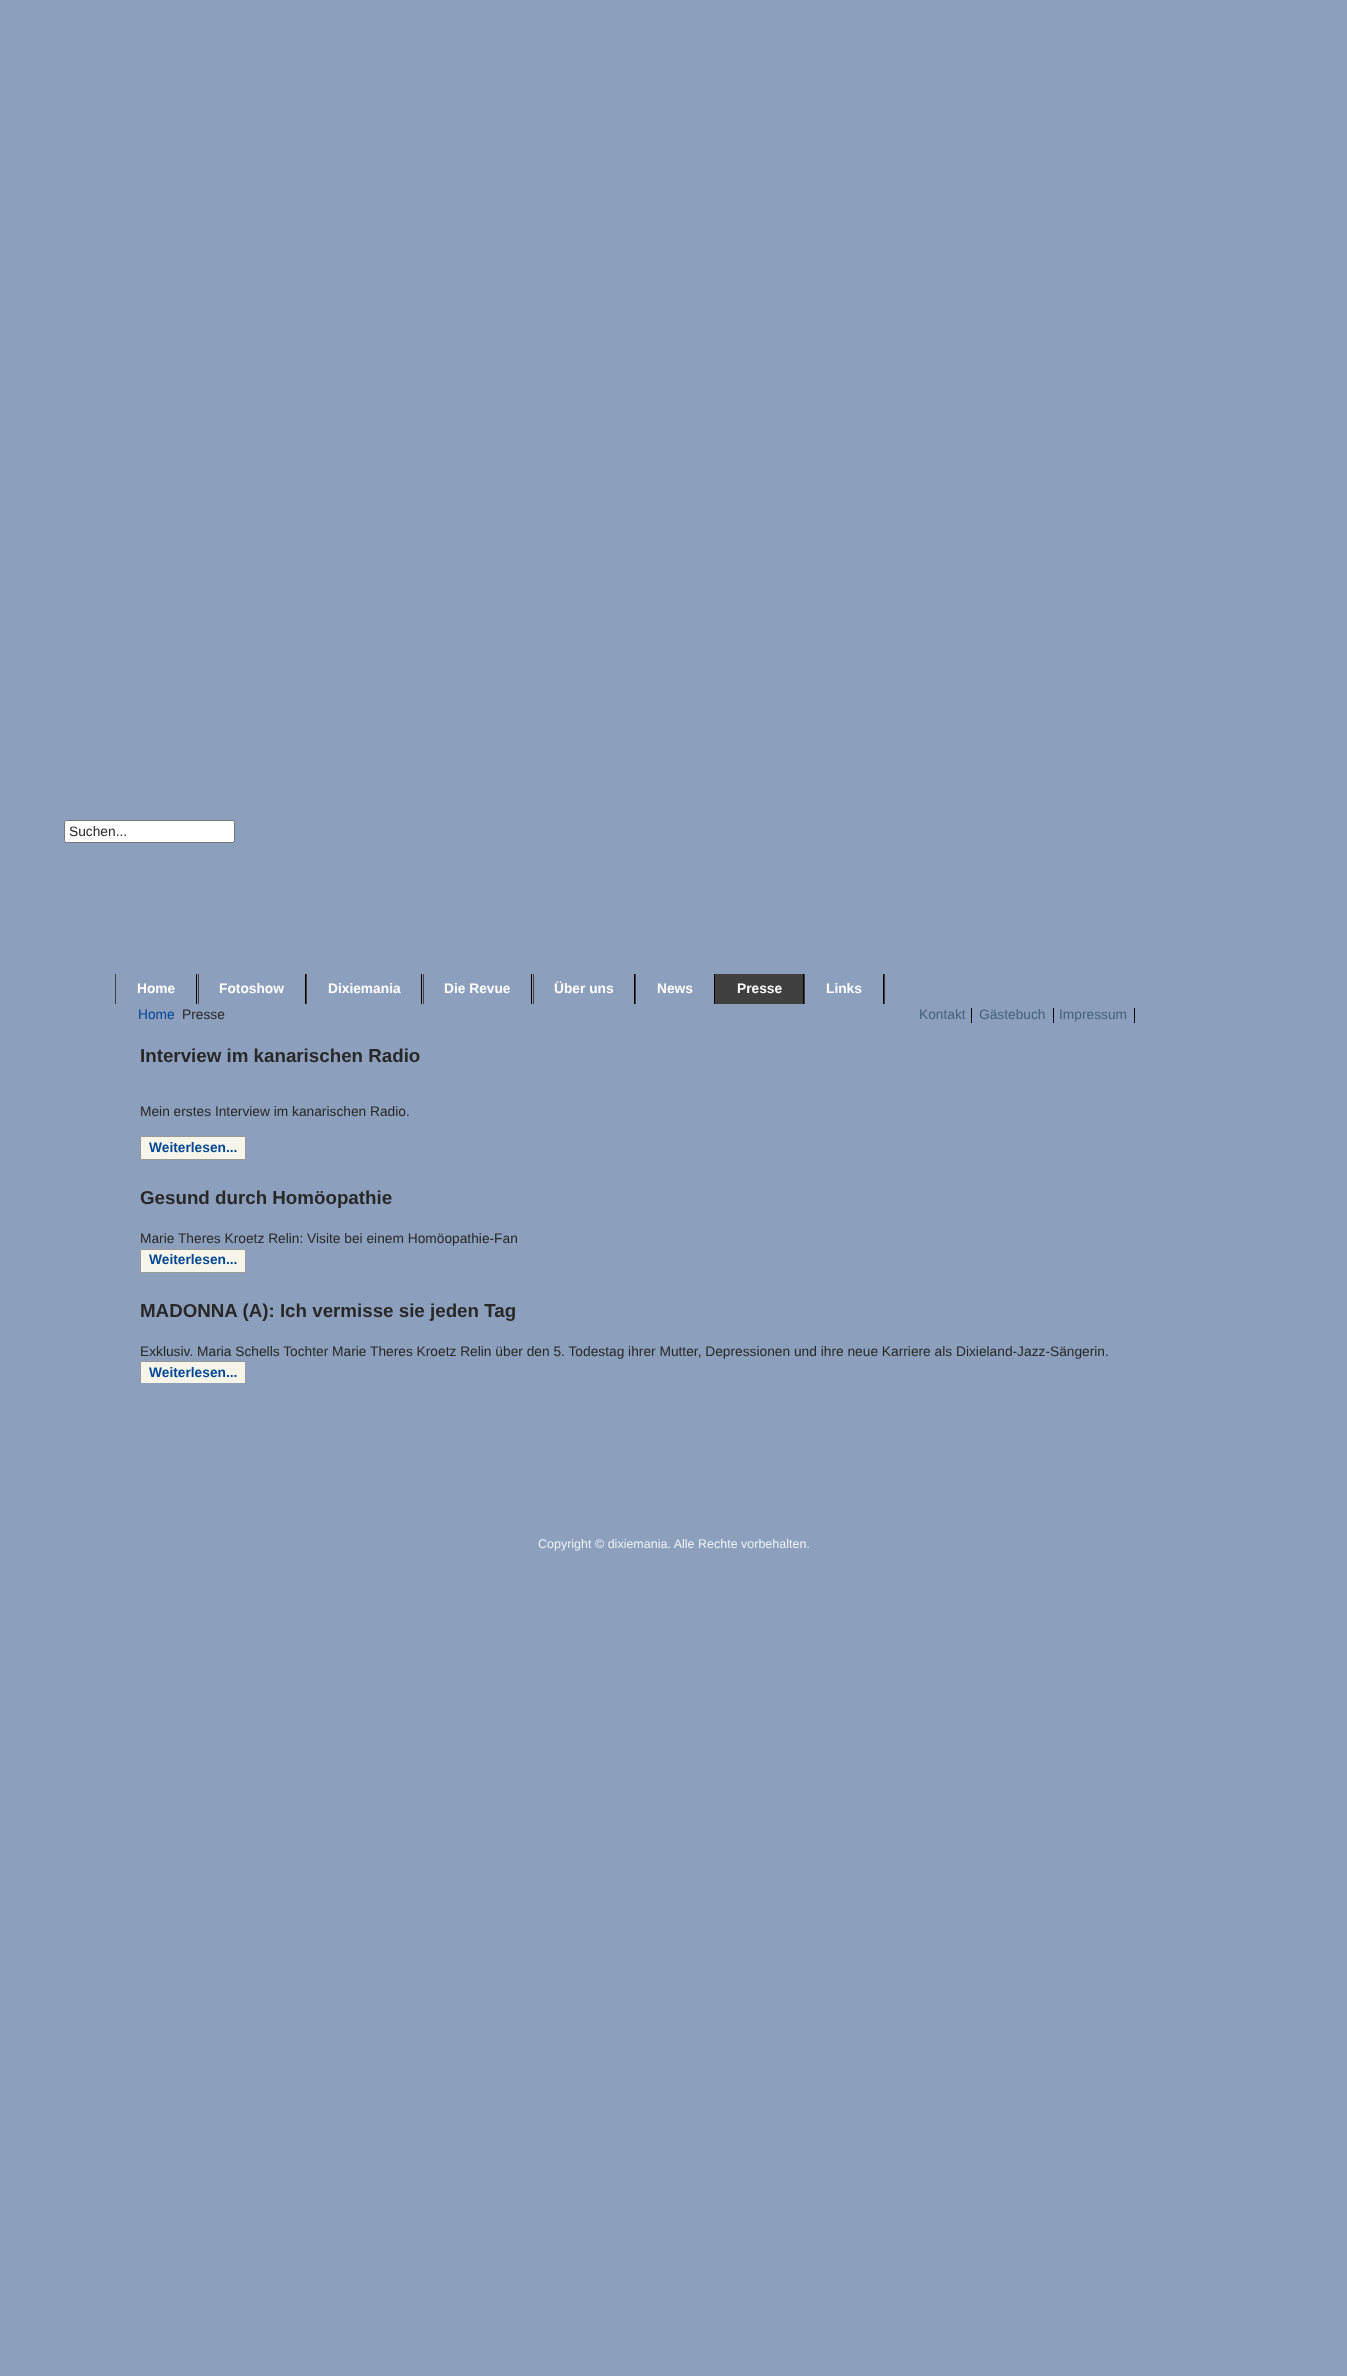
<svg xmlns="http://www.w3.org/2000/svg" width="1347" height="2376">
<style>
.a{font:13.75px Liberation Sans;fill:#282828}
.b{font:bold 13.75px Liberation Sans;fill:#fff}
.c{font:13.75px Liberation Sans;fill:#004697}
.d{font:13.75px Liberation Sans;fill:#47617f}
.e{font:bold 18.75px Liberation Sans;fill:#282828}
.f{font:bold 13.75px Liberation Sans;fill:#004697}
.g{font:12.5px Liberation Sans;fill:#edf2f8}
</style>
<defs>
<clipPath id="clip1"><path d="M119 1030h1106v353H119z"/></clipPath>
</defs>
<rect width="100%" height="100%" fill="#8c9fbc"/>
<rect fill="#fff" stroke="#767676" x="64.5" y="820.5" width="170" height="22" rx="2"/>
<path fill="#404040" d="M884 974h1v30H884z"/>
<path fill="#000" d="M196 974h1v30H196z"/>
<path fill="#404040" d="M115 974h1v30H115z"/>
<path fill="#000" d="M305 974h1v30H305z"/>
<path fill="#404040" d="M198 974h1v30H198z"/>
<path fill="#000" d="M421 974h1v30H421z"/>
<path fill="#404040" d="M306 974h1v30H306z"/>
<path fill="#000" d="M531 974h1v30H531z"/>
<path fill="#404040" d="M423 974h1v30H423z"/>
<path fill="#000" d="M634 974h1v30H634z"/>
<path fill="#404040" d="M533 974h1v30H533z"/>
<path fill="#000" d="M714 974h1v30H714z"/>
<path fill="#404040" d="M635 974h1v30H635z"/>
<path fill="#404040" d="M715 974h88v30H715z"/>
<path fill="#000" d="M803 974h1v30H803z"/>
<path fill="#000" d="M883 974h1v30H883z"/>
<path fill="#404040" d="M804 974h1v30H804z"/>
<path fill="#000" d="M971 1008h1v15H971z"/>
<path fill="#000" d="M1053 1008h1v15H1053z"/>
<path fill="#000" d="M1134 1008h1v15H1134z"/>
<path fill="#f7f4ea" stroke="#999" d="M140.5 1136.5h105v23H140.5z"/>
<path fill="#f7f4ea" stroke="#999" d="M140.5 1249.5h105v23H140.5z"/>
<path fill="#f7f4ea" d="M141 1362h104v21H141z"/>
<g clip-path="url(#clip1)">
<path fill="none" stroke="#999" d="M140.5 1361.5h105v23H140.5z"/>
</g>
<text class="a" x="69" y="836">Suchen...</text>
<text class="b" x="137" y="993">Home</text>
<text class="b" x="219" y="993">Fotoshow</text>
<text class="b" x="328" y="993">Dixiemania</text>
<text class="b" x="444" y="993">Die Revue</text>
<text class="b" x="554" y="993">Über uns</text>
<text class="b" x="657" y="993">News</text>
<text class="b" x="737" y="993">Presse</text>
<text class="b" x="826" y="993">Links</text>
<text class="c" x="138" y="1019">Home</text>
<text class="a" x="182" y="1019">Presse</text>
<text class="d" x="919" y="1019">Kontakt</text>
<text class="d" x="979" y="1019">Gästebuch</text>
<text class="d" x="1059" y="1019">Impressum</text>
<text class="e" x="140" y="1062">Interview im kanarischen Radio</text>
<text class="a" x="140" y="1116">Mein erstes Interview im kanarischen Radio.</text>
<text class="f" x="149" y="1152">Weiterlesen...</text>
<text class="e" x="140" y="1204">Gesund durch Homöopathie</text>
<text class="a" x="140" y="1243">Marie Theres Kroetz Relin: Visite bei einem Homöopathie-Fan</text>
<text class="f" x="149" y="1264">Weiterlesen...</text>
<text class="e" x="140" y="1317">MADONNA (A): Ich vermisse sie jeden Tag</text>
<text class="a" x="140" y="1356">Exklusiv. Maria Schells Tochter Marie Theres Kroetz Relin über den 5. Todestag ihrer Mutter, Depressionen und ihre neue Karriere als Dixieland-Jazz-Sängerin.</text>
<text class="f" x="149" y="1377">Weiterlesen...</text>
<text class="g" x="538" y="1548">Copyright © dixiemania. Alle Rechte vorbehalten.</text>
</svg>
